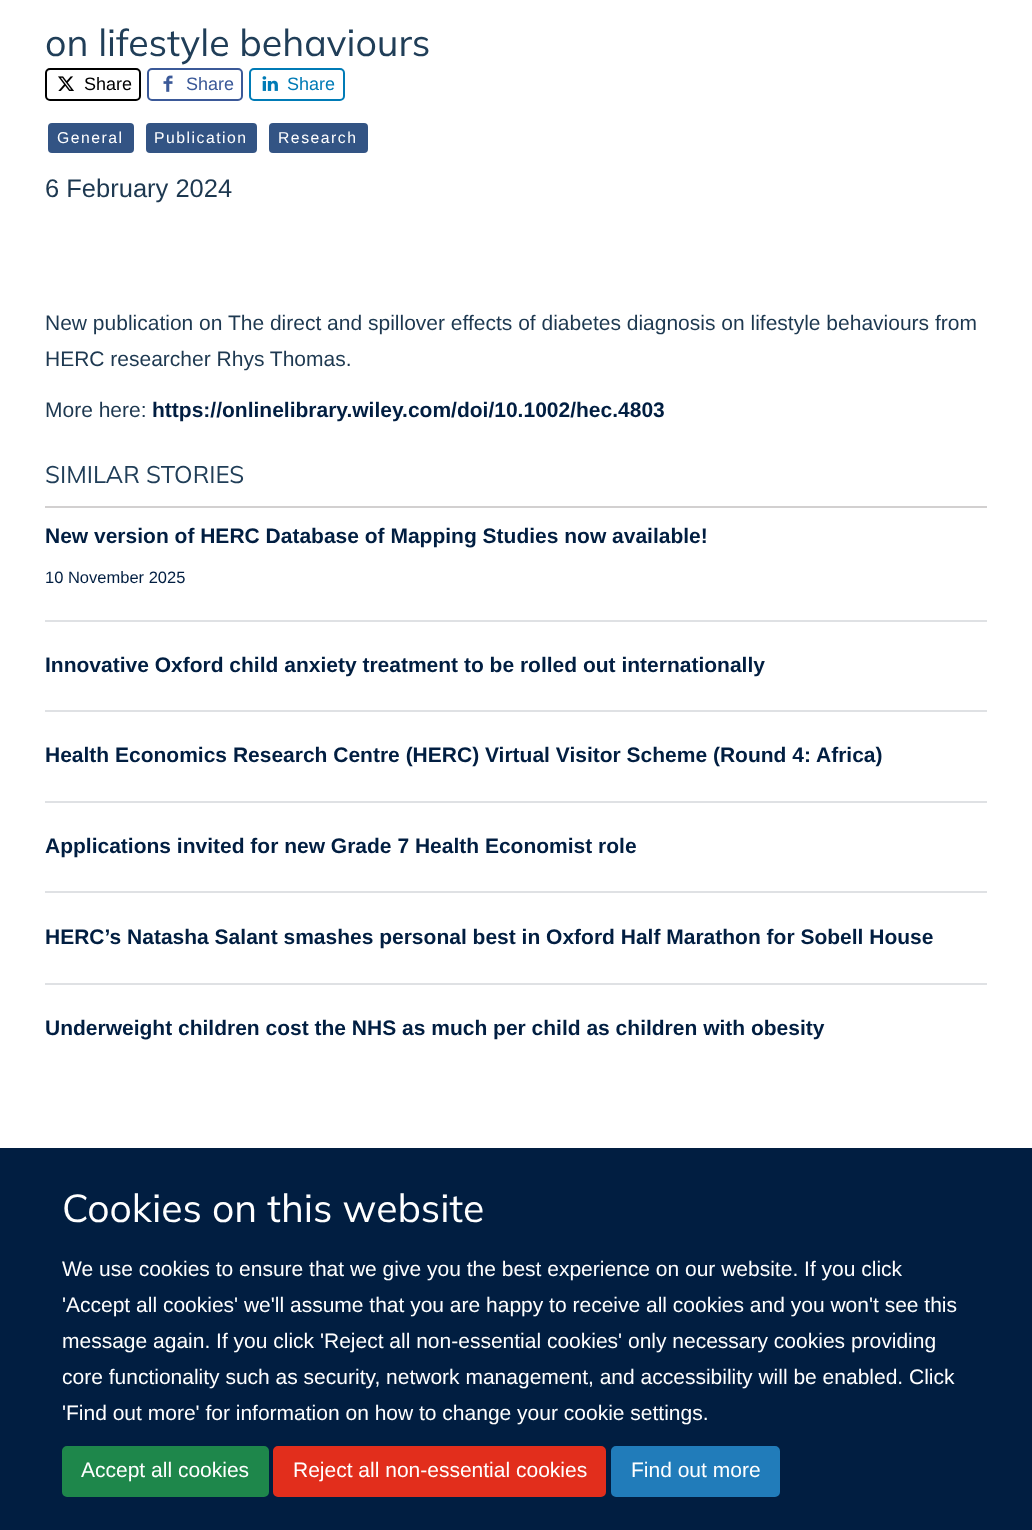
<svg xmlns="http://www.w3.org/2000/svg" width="1032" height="1530">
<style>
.a{font:37.5px Mulish;fill:#203e58}
.b{font:18px Liberation Sans;fill:#000}
.c{font:18px Liberation Sans;fill:#3b5998}
.d{font:18px Liberation Sans;fill:#007bb6}
.e{font:15.75px Liberation Sans;letter-spacing:1.5px;fill:#fff}
.f{font:25.5px Liberation Sans;fill:#1d3850}
.g{font:21px Liberation Sans;fill:#1d3850}
.h{font:bold 21px Liberation Sans;fill:#011e41}
.i{font:24px Mulish;fill:#203e58}
.j{font:16.5px Liberation Sans;fill:#011e41}
.k{font:39px Mulish;fill:#fff}
.l{font:21px Liberation Sans;fill:#fff}
</style>
<rect width="100%" height="100%" fill="#fff"/>
<rect fill="none" stroke="#000" stroke-width="2" x="46" y="69" width="94" height="31" rx="4"/>
<image href="1.png" x="58" y="76" width="16" height="15"/>
<rect fill="none" stroke="#3b5998" stroke-width="2" x="148" y="69" width="94" height="31" rx="4"/>
<image href="2.png" x="163" y="75" width="10" height="17"/>
<rect fill="none" stroke="#007bb6" stroke-width="2" x="250" y="69" width="94" height="31" rx="4"/>
<image href="3.png" x="262" y="76" width="16" height="15"/>
<rect fill="#335484" x="48" y="123" width="86" height="30" rx="4"/>
<rect fill="#335484" x="146" y="123" width="111" height="30" rx="4"/>
<rect fill="#335484" x="269" y="123" width="99" height="30" rx="4"/>
<path fill="#d2d0d0" d="M45 506h942v2H45z"/>
<path fill="#dfe1e4" d="M45 620h942v2H45z"/>
<path fill="#dfe1e4" d="M45 710h942v2H45z"/>
<path fill="#dfe1e4" d="M45 801h942v2H45z"/>
<path fill="#dfe1e4" d="M45 891h942v2H45z"/>
<path fill="#dfe1e4" d="M45 983h942v2H45z"/>
<path fill="#011e41" d="M0 1148h1032v382H0z"/>
<rect fill="#1e874b" stroke="#1e874b" stroke-width="2" x="63" y="1447" width="205" height="49" rx="4"/>
<rect fill="#e22e1c" stroke="#e22e1c" stroke-width="2" x="274" y="1447" width="331" height="49" rx="4"/>
<rect fill="#217cba" stroke="#217cba" stroke-width="2" x="612" y="1447" width="167" height="49" rx="4"/>
<text class="a" x="45" y="56">on lifestyle behaviours</text>
<text class="b" x="84" y="90">Share</text>
<text class="c" x="186" y="90">Share</text>
<text class="d" x="287" y="90">Share</text>
<text class="e" x="57" y="143">General</text>
<text class="e" x="154" y="143">Publication</text>
<text class="e" x="278" y="143">Research</text>
<text class="f" x="45" y="197">6 February 2024</text>
<text class="g" x="45" y="330">New publication on The direct and spillover effects of diabetes diagnosis on lifestyle behaviours from</text>
<text class="g" x="45" y="366">HERC researcher Rhys Thomas.</text>
<text class="g" x="45" y="417">More here:</text>
<text class="h" x="152" y="417">https://onlinelibrary.wiley.com/doi/10.1002/hec.4803</text>
<text class="i" x="45" y="483">SIMILAR STORIES</text>
<text class="h" x="45" y="543">New version of HERC Database of Mapping Studies now available!</text>
<text class="j" x="45" y="583">10 November 2025</text>
<text class="h" x="45" y="672">Innovative Oxford child anxiety treatment to be rolled out internationally</text>
<text class="h" x="45" y="762">Health Economics Research Centre (HERC) Virtual Visitor Scheme (Round 4: Africa)</text>
<text class="h" x="45" y="853">Applications invited for new Grade 7 Health Economist role</text>
<text class="h" x="45" y="944">HERC’s Natasha Salant smashes personal best in Oxford Half Marathon for Sobell House</text>
<text class="h" x="45" y="1035">Underweight children cost the NHS as much per child as children with obesity</text>
<text class="k" x="62" y="1222">Cookies on this website</text>
<text class="l" x="62" y="1276">We use cookies to ensure that we give you the best experience on our website. If you click</text>
<text class="l" x="62" y="1312">'Accept all cookies' we'll assume that you are happy to receive all cookies and you won't see this</text>
<text class="l" x="62" y="1348">message again. If you click 'Reject all non-essential cookies' only necessary cookies providing</text>
<text class="l" x="62" y="1384">core functionality such as security, network management, and accessibility will be enabled. Click</text>
<text class="l" x="62" y="1420">'Find out more' for information on how to change your cookie settings.</text>
<text class="l" x="81" y="1477">Accept all cookies</text>
<text class="l" x="293" y="1477">Reject all non-essential cookies</text>
<text class="l" x="631" y="1477">Find out more</text>
</svg>
